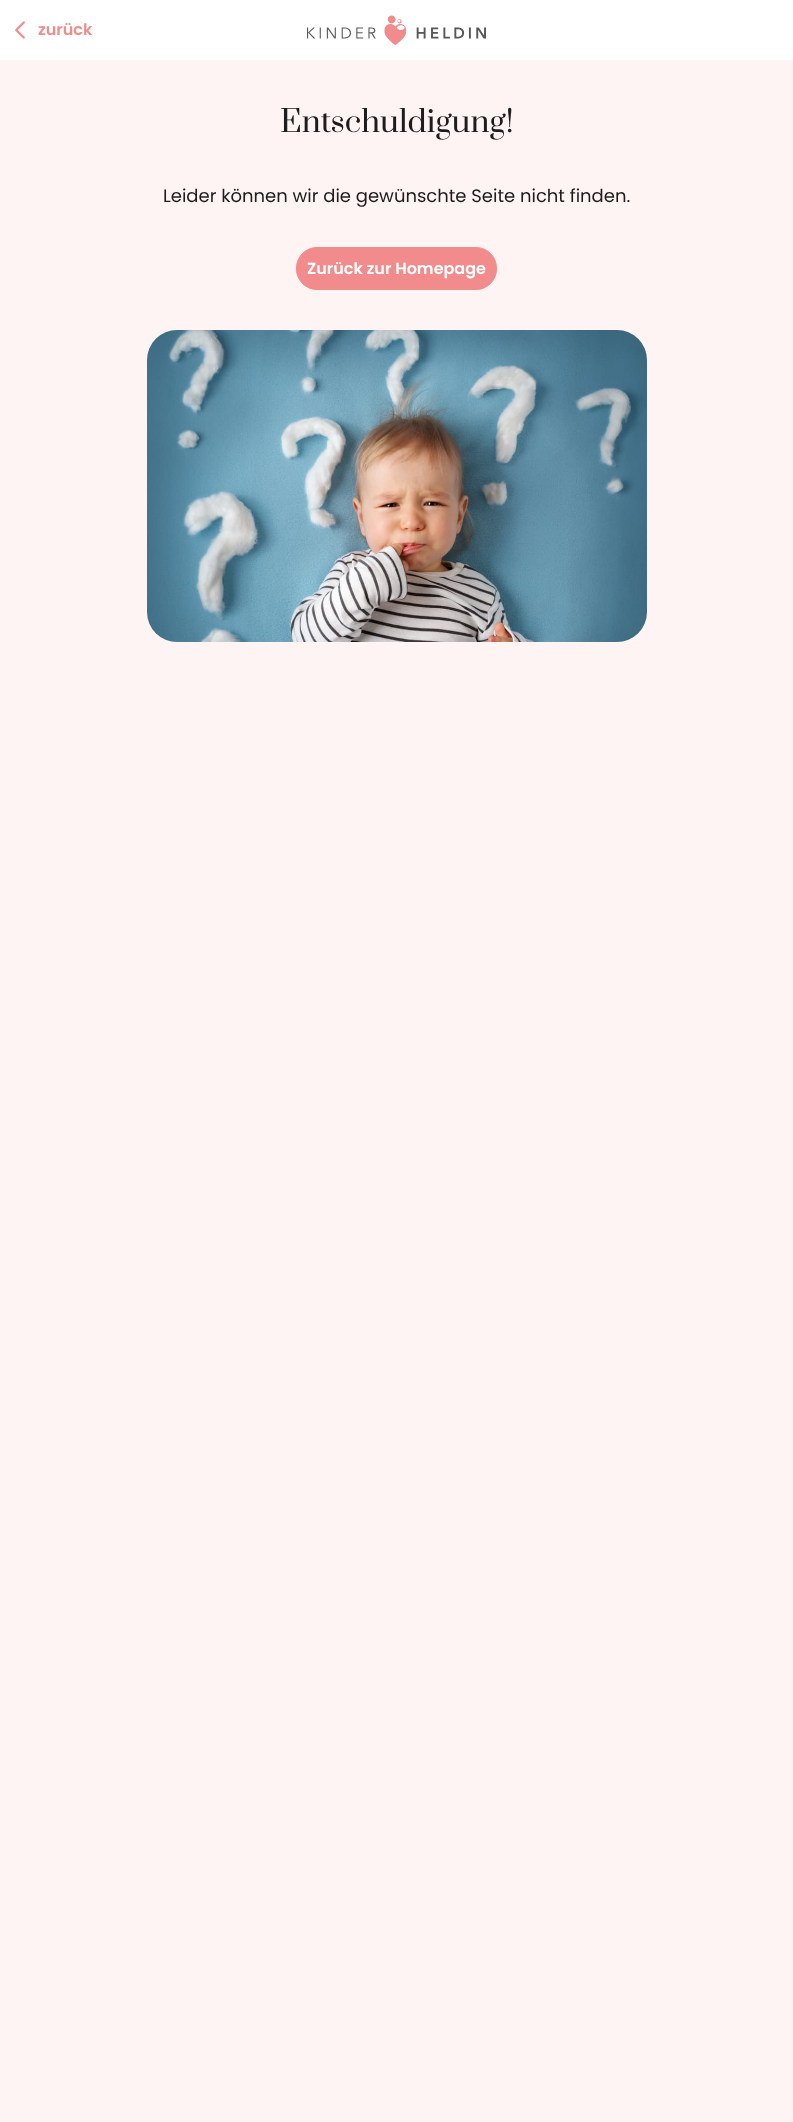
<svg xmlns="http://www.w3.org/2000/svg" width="793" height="2122">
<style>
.a{font:600 16px Poppins;fill:#f28c8c}
.b{font:30px Prata;fill:#1d1d1d}
.c{font:18px Poppins;fill:#1d1d1d}
.d{font:600 16px Poppins;fill:#fff}
</style>
<rect width="100%" height="100%" fill="#fff"/>
<image href="1.png" x="15" y="21" width="10" height="18"/>
<image href="2.png" x="307" y="15" width="179" height="30"/>
<path fill="#fff4f4" d="M0 60h793v2062H0z"/>
<rect fill="#f28c8c" stroke="#f28c8c" x="296.5" y="247.5" width="200" height="42" rx="20.5"/>
<image href="3.png" x="147" y="330" width="500" height="312"/>
<text class="a" x="38" y="35">zurück</text>
<text class="b" x="280" y="132">Entschuldigung!</text>
<text class="c" x="163" y="202">Leider können wir die gewünschte Seite nicht finden.</text>
<text class="d" x="307" y="274">Zurück zur Homepage</text>
</svg>
